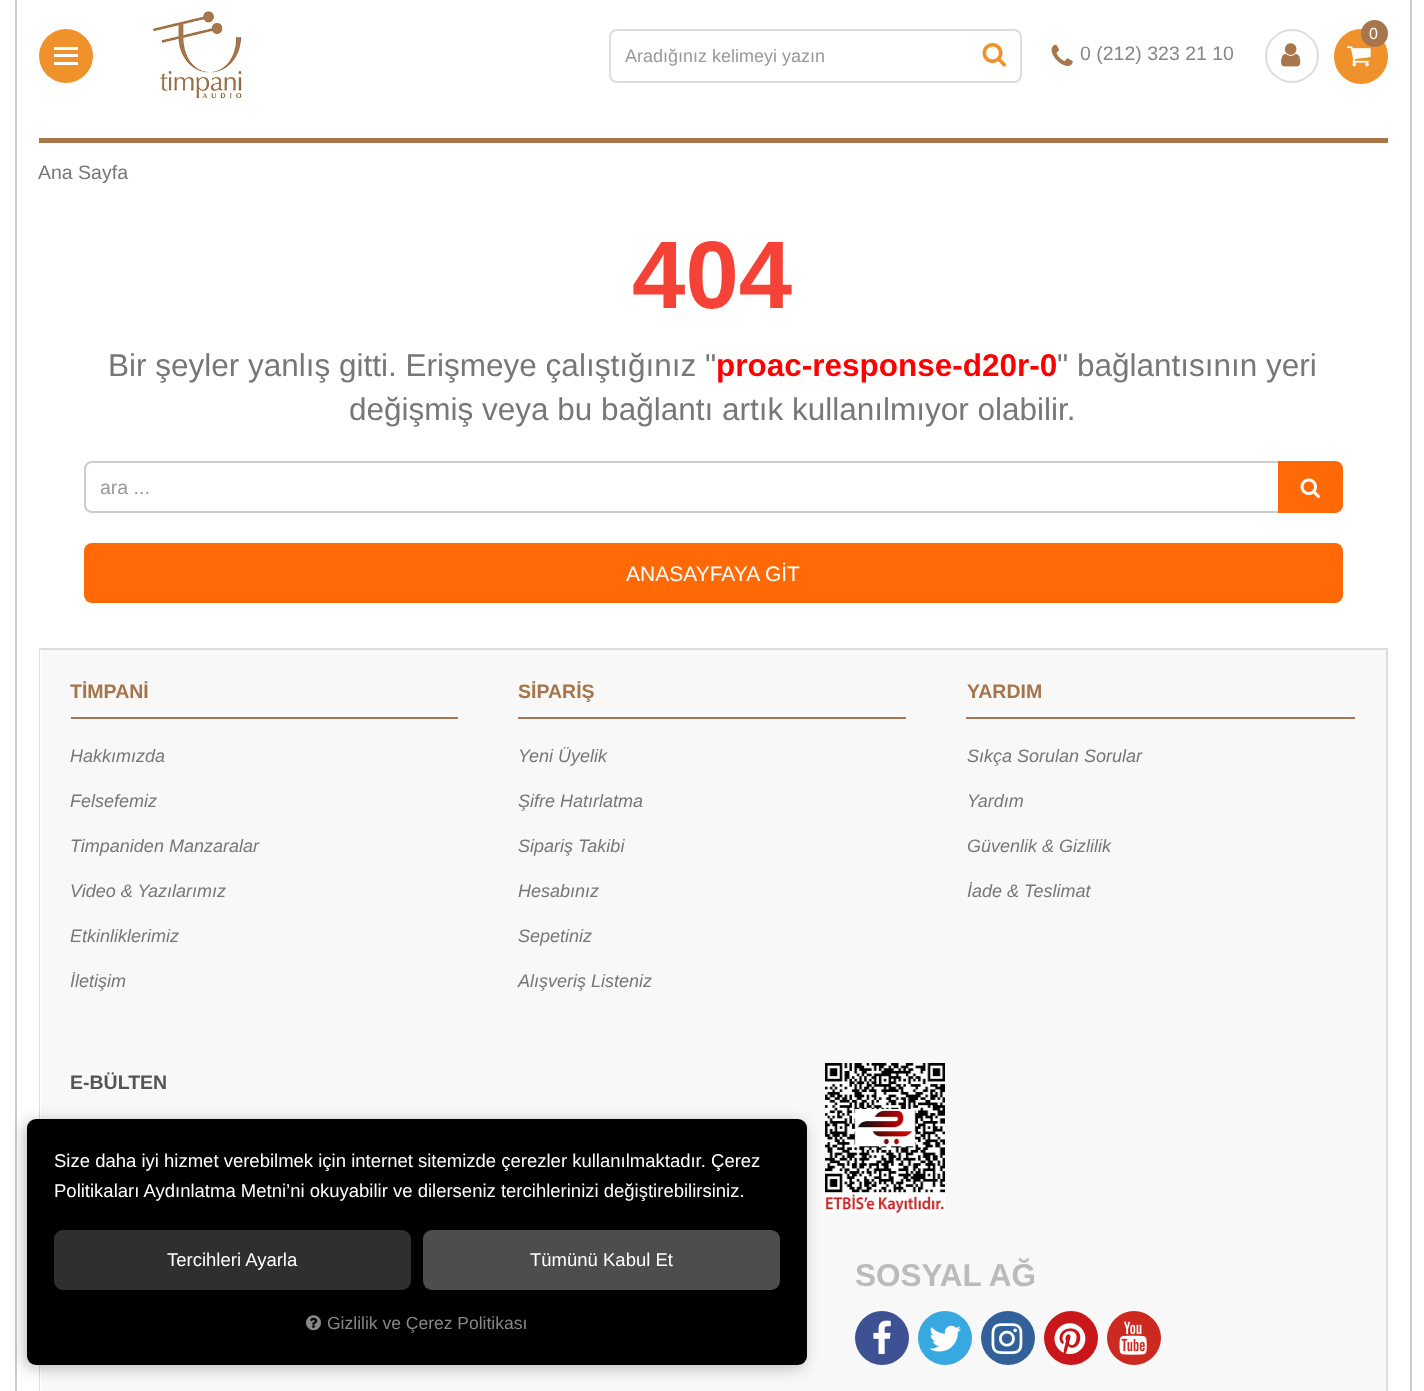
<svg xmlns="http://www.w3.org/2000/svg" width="1424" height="1391">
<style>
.a{font:18px Liberation Sans;fill:#999}
.b{font:19.5px Liberation Sans;fill:#878787}
.c{font:16px Liberation Sans;fill:#fff}
.d{font:19.5px Liberation Sans;fill:#777}
.e{font:bold 96px Liberation Sans;fill:#f44336}
.f{font:31.5px Liberation Sans;fill:#777}
.g{font:bold 31.5px Liberation Sans;fill:#f00}
.h{font:19.5px Liberation Sans;fill:#999}
.i{font:21px Liberation Sans;fill:#fff}
.j{font:bold 19.5px Liberation Sans;fill:#a5764c}
.k{font:italic 18px Liberation Sans;fill:#777}
.l{font:bold 19.5px Liberation Sans;fill:#555}
.m{font:bold 31.5px Liberation Sans;fill:#bbb}
.n{font:18.5px Liberation Sans;fill:#fff}
.o{font:17.5px Liberation Sans;fill:#878787}
</style>
<defs>
<clipPath id="clip1"><path d="M101 476h1162v22H101z"/></clipPath>
</defs>
<rect width="100%" height="100%" fill="#fff"/>
<path fill="none" stroke="#ccc" stroke-width="2" d="M16 -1h1395v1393H16z"/>
<circle fill="#f0922c" cx="66" cy="56" r="27"/>
<path fill="#fff" d="M54 47h24v3H54z"/>
<path fill="#fff" d="M54 54h24v3H54z"/>
<path fill="#fff" d="M54 62h24v3H54z"/>
<image href="1.png" x="153" y="10" width="89" height="89"/>
<rect fill="none" stroke="#ddd" stroke-width="2" x="610" y="30" width="411" height="52" rx="7"/>
<image href="2.png" x="982" y="43" width="25" height="24"/>
<image href="3.png" x="1051" y="44" width="22" height="22"/>
<circle fill="none" stroke="#ddd" stroke-width="2" cx="1292" cy="56" r="26"/>
<image href="4.png" x="1281" y="43" width="20" height="24"/>
<rect fill="#f0922c" x="1334" y="29" width="54" height="55" rx="27"/>
<image href="5.png" x="1347" y="46" width="24" height="21"/>
<circle fill="#a7764d" cx="1374.5" cy="33.5" r="13.5"/>
<path fill="#a6764d" d="M39 138h1349v5H39z"/>
<path fill="none" stroke="#ccc" stroke-width="2" d="M92 462h1187v50h-1187c-4 0-7-3-7-7v-36c0-4 3-7 7-7z"/>
<path fill="#ff6a07" d="M1278 461h57c4.5 0 8 3.5 8 8v36c0 4.5-3.5 8-8 8h-57z"/>
<image href="6.png" x="1300" y="478" width="20" height="20"/>
<rect fill="#ff6a07" x="84" y="543" width="1259" height="60" rx="8"/>
<path fill="#f8f8f8" d="M41 650h1345v741H41z"/>
<path fill="#ddd" d="M39 648h1349v2H39z"/>
<path fill="#ddd" d="M1388 648v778l-2-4v-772z"/>
<path fill="#ddd" d="M39 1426v-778l1 2v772z"/>
<path fill="#a6764d" d="M71 717h387v2H71z"/>
<path fill="#a6764d" d="M518 717h388v2H518z"/>
<path fill="#a6764d" d="M966 717h389v2H966z"/>
<image href="7.png" x="825" y="1063" width="120" height="150"/>
<circle fill="#3d5193" cx="882" cy="1338" r="27"/>
<image href="8.png" x="873" y="1320" width="18" height="35"/>
<circle fill="#38a8e0" cx="945" cy="1338" r="27"/>
<image href="9.png" x="929" y="1325" width="32" height="27"/>
<circle fill="#316198" cx="1008" cy="1338" r="27"/>
<image href="10.png" x="991" y="1323" width="32" height="32"/>
<circle fill="#c9161a" cx="1071" cy="1338" r="27"/>
<image href="11.png" x="1054" y="1323" width="32" height="32"/>
<circle fill="#cc2a20" cx="1134" cy="1338" r="27"/>
<image href="12.png" x="1119" y="1321" width="28" height="34"/>
<rect fill="#00000040" filter="blur(7.5px)" x="24" y="1122" width="780" height="246" rx="9"/>
<rect fill="#000" x="27" y="1119" width="780" height="246" rx="9"/>
<rect fill="#2f2f2f" x="54" y="1230" width="357" height="60" rx="9"/>
<rect fill="#4d4d4d" x="423" y="1230" width="357" height="60" rx="9"/>
<image href="13.png" x="306" y="1315" width="15" height="16"/>
<text class="a" x="625" y="62">Aradığınız kelimeyi yazın</text>
<text class="b" x="1080" y="60">0 (212) 323 21 10</text>
<text class="c" x="1369" y="39">0</text>
<text class="d" x="38" y="179">Ana Sayfa</text>
<text class="e" x="632" y="308">404</text>
<text class="f" x="108" y="376">Bir şeyler yanlış gitti. Erişmeye çalıştığınız "</text>
<text class="g" x="716" y="376">proac-response-d20r-0</text>
<text class="f" x="1057" y="376">" bağlantısının yeri</text>
<text class="f" x="349" y="420">değişmiş veya bu bağlantı artık kullanılmıyor olabilir.</text>
<g clip-path="url(#clip1)">
<text class="h" x="100" y="494">ara ...</text>
</g>
<text class="i" x="626" y="581">ANASAYFAYA GİT</text>
<text class="j" x="70" y="698">TİMPANİ</text>
<text class="k" x="70" y="762">Hakkımızda</text>
<text class="k" x="70" y="807">Felsefemiz</text>
<text class="k" x="70" y="852">Timpaniden Manzaralar</text>
<text class="k" x="70" y="897">Video &amp; Yazılarımız</text>
<text class="k" x="70" y="942">Etkinliklerimiz</text>
<text class="k" x="70" y="987">İletişim</text>
<text class="j" x="518" y="698">SİPARİŞ</text>
<text class="k" x="518" y="762">Yeni Üyelik</text>
<text class="k" x="518" y="807">Şifre Hatırlatma</text>
<text class="k" x="518" y="852">Sipariş Takibi</text>
<text class="k" x="518" y="897">Hesabınız</text>
<text class="k" x="518" y="942">Sepetiniz</text>
<text class="k" x="518" y="987">Alışveriş Listeniz</text>
<text class="j" x="967" y="698">YARDIM</text>
<text class="k" x="967" y="762">Sıkça Sorulan Sorular</text>
<text class="k" x="967" y="807">Yardım</text>
<text class="k" x="967" y="852">Güvenlik &amp; Gizlilik</text>
<text class="k" x="967" y="897">İade &amp; Teslimat</text>
<text class="l" x="70" y="1089">E-BÜLTEN</text>
<text class="m" x="855" y="1286">SOSYAL AĞ</text>
<text class="n" x="54" y="1167">Size daha iyi hizmet verebilmek için internet sitemizde çerezler kullanılmaktadır. Çerez</text>
<text class="n" x="54" y="1197">Politikaları Aydınlatma Metni’ni okuyabilir ve dilerseniz tercihlerinizi değiştirebilirsiniz.</text>
<text class="n" x="167" y="1266">Tercihleri Ayarla</text>
<text class="n" x="530" y="1266">Tümünü Kabul Et</text>
<text class="o" x="327" y="1329">Gizlilik ve Çerez Politikası</text>
</svg>
